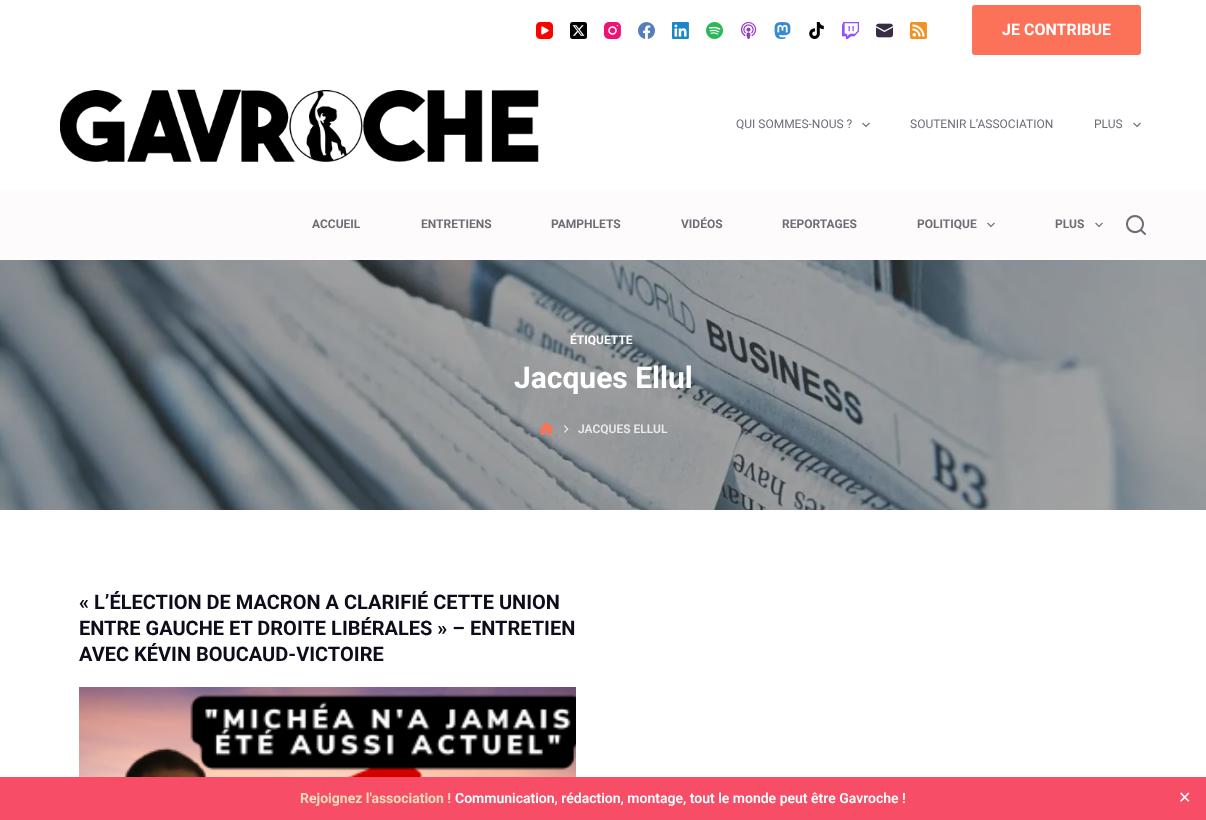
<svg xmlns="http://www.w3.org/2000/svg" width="1206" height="820">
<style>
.a{font:bold 16px Roboto;fill:#fff}
.b{font:12px Roboto;fill:#6e6d76}
.c{font:bold 12px Roboto;fill:#6e6d76}
.d{font:bold 12px Roboto;fill:#fff}
.e{font:bold 30px Roboto;fill:#fff}
.f{font:600 12px Roboto;fill:#e9e9e9}
.g{font:bold 20px Roboto;fill:#0e0c1b}
.h{font:bold 14px Roboto;fill:#f2ddb7}
.i{font:600 14px Roboto;fill:#fff}
.j{font:16px DejaVu Sans;fill:#fff}
</style>
<rect width="100%" height="100%" fill="#fff"/>
<image href="1.png" x="536" y="22" width="17" height="17"/>
<image href="2.png" x="570" y="22" width="17" height="17"/>
<image href="3.png" x="604" y="22" width="17" height="17"/>
<image href="4.png" x="638" y="22" width="17" height="17"/>
<image href="5.png" x="672" y="22" width="17" height="17"/>
<image href="6.png" x="706" y="22" width="17" height="17"/>
<image href="7.png" x="740" y="22" width="17" height="17"/>
<image href="8.png" x="774" y="22" width="17" height="17"/>
<image href="9.png" x="809" y="22" width="15" height="17"/>
<image href="10.png" x="842" y="22" width="17" height="17"/>
<image href="11.png" x="876" y="23" width="17" height="15"/>
<image href="12.png" x="910" y="22" width="17" height="17"/>
<rect fill="#fb7258" x="972" y="5" width="169" height="50" rx="3"/>
<image href="13.png" x="60" y="89" width="479" height="73"/>
<image href="14.png" x="862" y="122" width="8" height="6"/>
<image href="14.png" x="1133" y="122" width="8" height="6"/>
<path fill="#fdfbfb" d="M0 190h1206v70H0z"/>
<image href="15.png" x="987" y="222" width="8" height="6"/>
<image href="15.png" x="1095" y="222" width="8" height="6"/>
<image href="16.png" x="1126" y="215" width="20" height="20"/>
<image href="17.png" x="0" y="260" width="1206" height="250"/>
<image href="18.png" x="539" y="422" width="15" height="13"/>
<image href="19.png" x="564" y="425" width="5" height="8"/>
<image href="20.png" x="79" y="687" width="497" height="90"/>
<path fill="#f74d67" d="M0 777h1206v43H0z"/>
<text class="a" x="1002" y="35">JE CONTRIBUE</text>
<text class="b" x="736" y="128">QUI SOMMES-NOUS ?</text>
<text class="b" x="910" y="128">SOUTENIR L’ASSOCIATION</text>
<text class="b" x="1094" y="128">PLUS</text>
<text class="c" x="312" y="228">ACCUEIL</text>
<text class="c" x="421" y="228">ENTRETIENS</text>
<text class="c" x="551" y="228">PAMPHLETS</text>
<text class="c" x="681" y="228">VIDÉOS</text>
<text class="c" x="782" y="228">REPORTAGES</text>
<text class="c" x="917" y="228">POLITIQUE</text>
<text class="c" x="1055" y="228">PLUS</text>
<text class="d" x="570" y="344">ÉTIQUETTE</text>
<text class="e" x="514" y="388">Jacques Ellul</text>
<text class="f" x="578" y="433">JACQUES ELLUL</text>
<text class="g" x="79" y="609">« L’ÉLECTION DE MACRON A CLARIFIÉ CETTE UNION</text>
<text class="g" x="79" y="635">ENTRE GAUCHE ET DROITE LIBÉRALES » – ENTRETIEN</text>
<text class="g" x="79" y="661">AVEC KÉVIN BOUCAUD-VICTOIRE</text>
<text class="h" x="300" y="803">Rejoignez l'association !</text>
<text class="i" x="455" y="803">Communication, rédaction, montage, tout le monde peut être Gavroche !</text>
<text class="j" x="1178" y="803">✕</text>
</svg>
